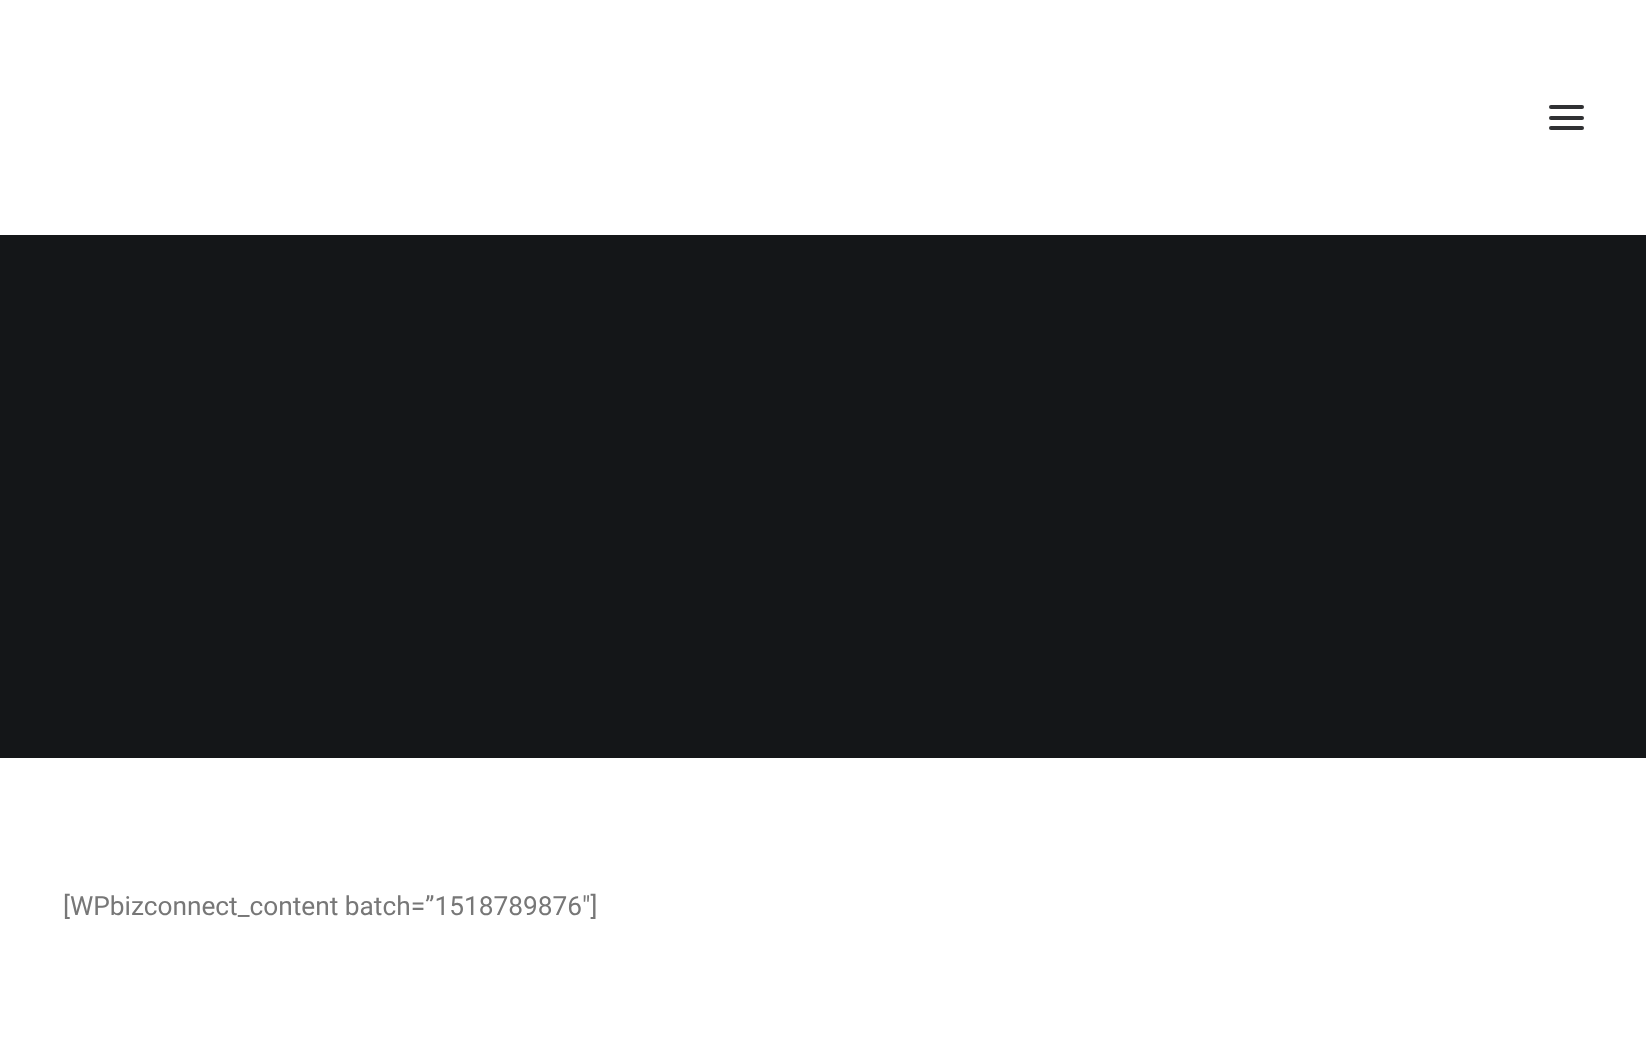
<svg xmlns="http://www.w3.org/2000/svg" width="1646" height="1040">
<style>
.a{font:26.25px Roboto;fill:#777}
</style>
<rect width="100%" height="100%" fill="#141618"/>
<path fill="#fff" d="M0 0h1646v235H0z"/>
<rect fill="#303133" x="1549" y="116" width="35" height="4" rx="2"/>
<rect fill="#303133" x="1549" y="105" width="35" height="4" rx="2"/>
<rect fill="#303133" x="1549" y="126" width="35" height="4" rx="2"/>
<path fill="#fff" d="M0 758h1646v282H0z"/>
<text class="a" x="63" y="915">[WPbizconnect_content batch=”1518789876″]</text>
</svg>
